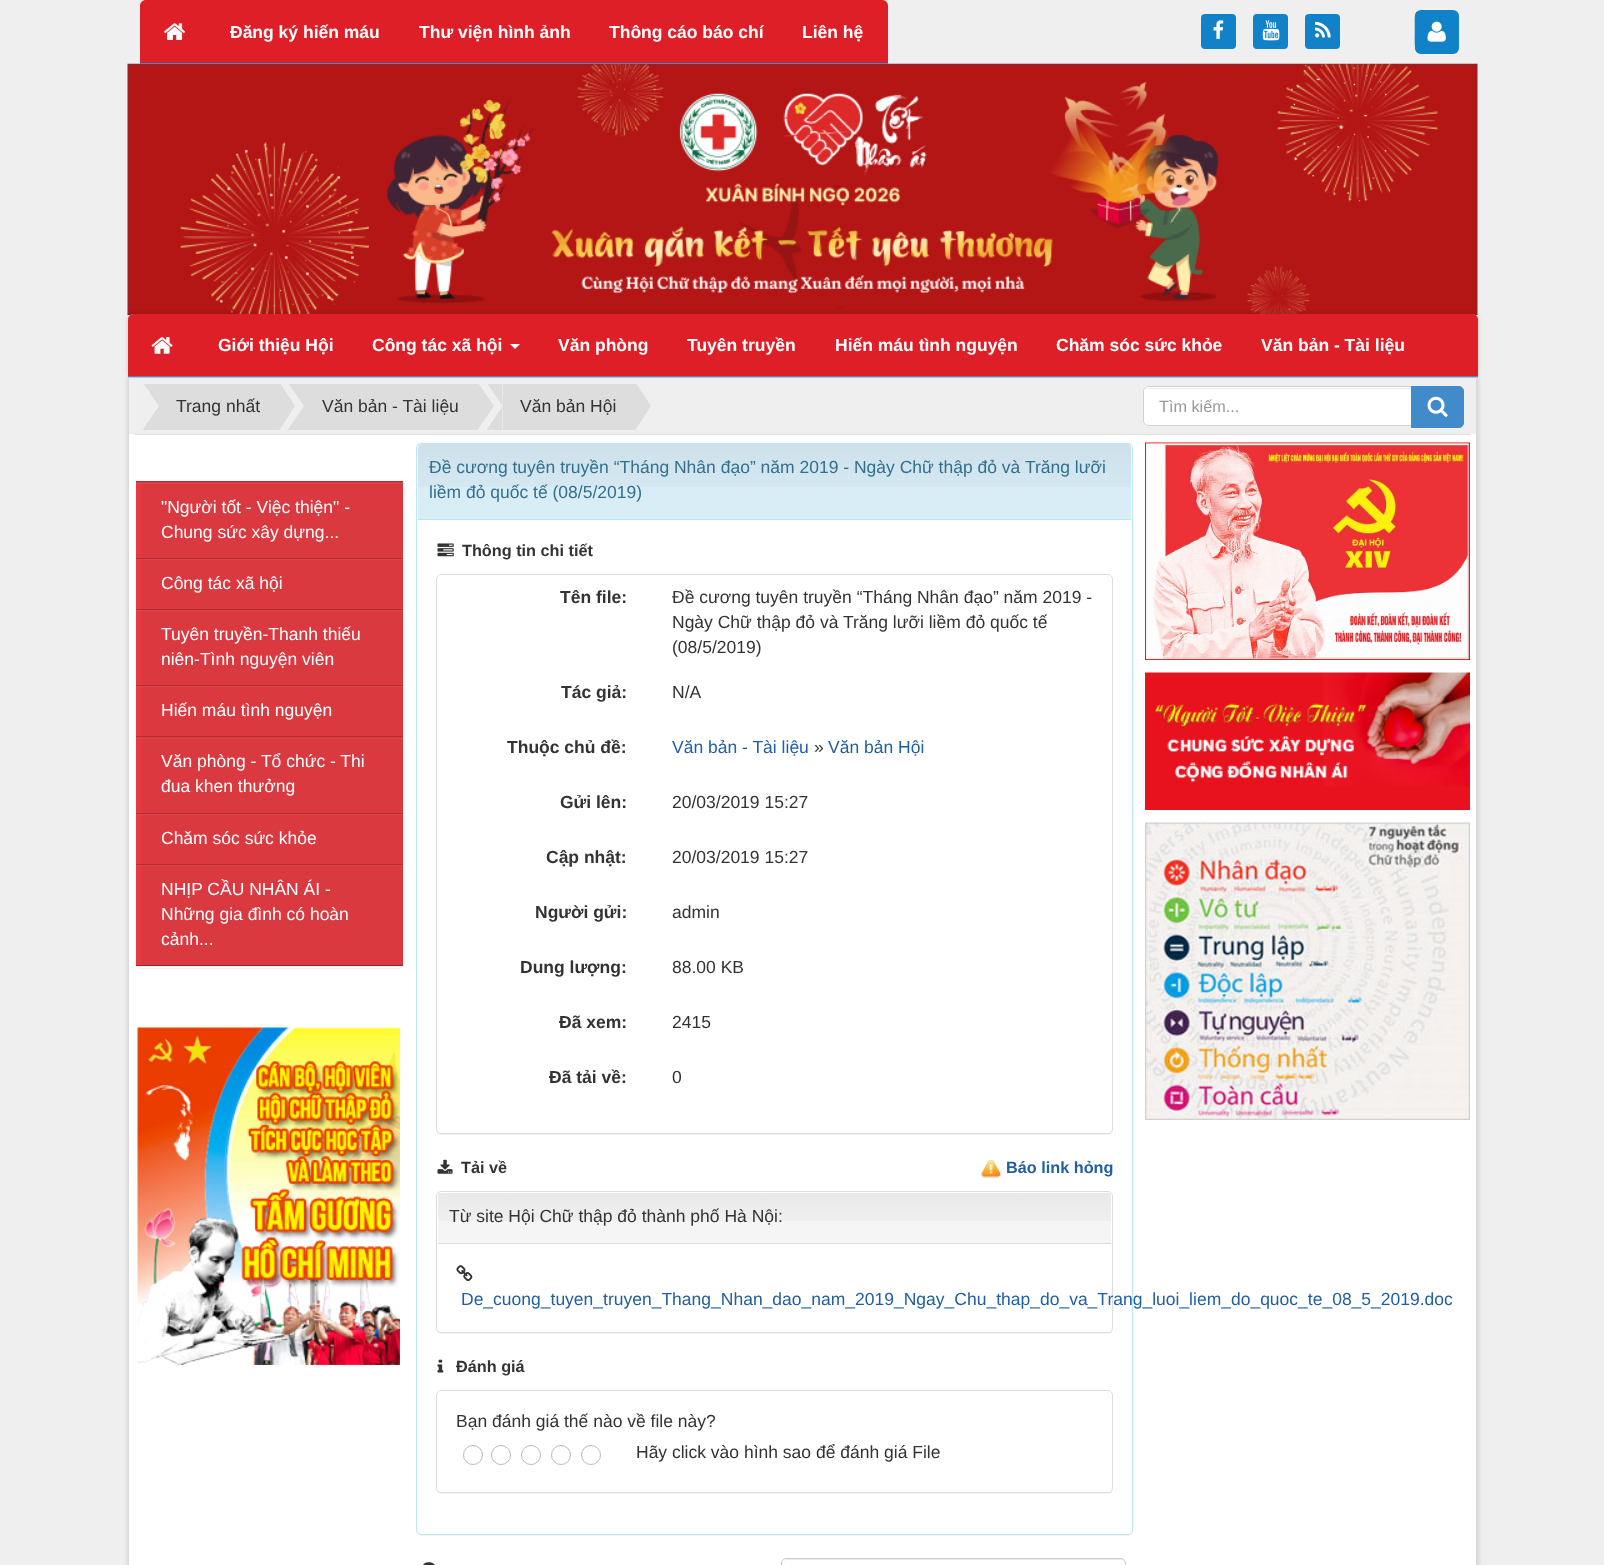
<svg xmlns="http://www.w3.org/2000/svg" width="1604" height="1565">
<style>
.a{font:bold 17.5px Liberation Sans;fill:#fff}
.b{font:17.5px Liberation Sans;fill:#333}
.c{font:16.25px Liberation Sans;fill:#999}
.d{font:17.5px Liberation Sans;fill:#fff}
.e{font:17.5px Liberation Sans;fill:#31708f}
.f{font:bold 16.25px Liberation Sans;fill:#333}
.g{font:bold 17.5px Liberation Sans;fill:#333}
.h{font:17.5px Liberation Sans;fill:#205fa0}
.i{font:bold 16.25px Liberation Sans;fill:#205fa0}
</style>
<defs>
<linearGradient id="g1" gradientUnits="userSpaceOnUse" x1="803" y1="314" x2="803" y2="378"><stop offset="0" stop-color="#000" stop-opacity="0.05"/><stop offset="1" stop-color="#000" stop-opacity="0"/></linearGradient>
<clipPath id="clip1"><path d="M141 384h989v46H141z"/></clipPath>
<linearGradient id="g2" gradientUnits="userSpaceOnUse" x1="774" y1="444" x2="774" y2="519"><stop offset="0" stop-color="#000" stop-opacity="0.05"/><stop offset="1" stop-color="#000" stop-opacity="0"/></linearGradient>
<linearGradient id="g3" gradientUnits="userSpaceOnUse" x1="774" y1="1193" x2="774" y2="1243"><stop offset="0" stop-color="#000" stop-opacity="0.05"/><stop offset="1" stop-color="#000" stop-opacity="0"/></linearGradient>
</defs>
<rect width="100%" height="100%" fill="#efefef"/>
<path fill="#de1f27" d="M146 0h736c3.5 0 6 2.5 6 6v57h-748v-57c0-3.5 2.5-6 6-6z"/>
<image href="6.png" x="127" y="63" width="1351" height="252"/>
<path fill="#428bca" d="M140 63h748v1H140z"/>
<image href="1.png" x="164" y="23" width="21" height="17"/>
<rect fill="#1182c8" x="1201" y="14" width="35" height="35" rx="4"/>
<image href="2.png" x="1213" y="20" width="11" height="19"/>
<rect fill="#1182c8" x="1253" y="14" width="35" height="35" rx="4"/>
<image href="3.png" x="1262" y="20" width="18" height="21"/>
<rect fill="#1182c8" x="1305" y="14" width="35" height="35" rx="4"/>
<image href="4.png" x="1315" y="21" width="16" height="17"/>
<rect fill="#1182c8" x="1415" y="10" width="44" height="44" rx="6"/>
<path fill="none" stroke="#1182c8" stroke-width="2.5" d="M1456 51c-2 2.5-6 1.5-8.5 1.5h-10.5c-24 0-21 3-21-20.5v-10.5c0-3-.5-6.5 1.5-9"/>
<image href="5.png" x="1427" y="21" width="19" height="21"/>
<rect fill="#00000026" filter="blur(2.5px)" x="128" y="314" width="1350" height="64" rx="6"/>
<path fill="#ccc" d="M134 314h1338c3.5 0 6 2.5 6 6v58h-1350v-58c0-3.5 2.5-6 6-6z"/>
<path fill="url(#g1)" d="M128 314h1350v6H128z"/>
<path fill="#00000026" filter="blur(2.5px)" d="M128 378h1350v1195H128z"/>
<path fill="#de1f27" d="M134 314h1338c3.5 0 6 2.5 6 6v56h-1350v-56c0-3.5 2.5-6 6-6z"/>
<path fill="#428bca" d="M128 376h1350v1H128z"/>
<image href="7.png" x="151" y="337" width="22" height="17"/>
<path fill="#fff" d="M510 344h10l-5 5z"/>
<path fill="#fff" d="M129 434h1347v1131H129z"/>
<path fill="#dadada" d="M1476 378h1v1187H1476z"/>
<path fill="#dadada" d="M128 378h1v2H128z"/>
<path fill="#ddd" d="M135 434h1335v1H135z"/>
<path fill="#efefef" d="M129 378h1347v56H129z"/>
<path fill="#ddd" d="M159 384h119v46H159z"/>
<g clip-path="url(#clip1)">
<path fill="#ddd" d="M141 380h18v26zm18 52.5h-18l18-26.5z"/>
<path fill="#ddd" d="M278 432v-52l17 26z"/>
</g>
<path fill="#ddd" d="M304 384h172v46H304z"/>
<g clip-path="url(#clip1)">
<path fill="#ddd" d="M286 380h18v26zm18 52.5h-18l18-26.5z"/>
<path fill="#ddd" d="M476 432v-52l18 26z"/>
</g>
<path fill="#ddd" d="M503 384h131v46H503z"/>
<g clip-path="url(#clip1)">
<path fill="#ddd" d="M485 380h17.5v26zm17.5 52.5h-17.5l17.5-26.5z"/>
<path fill="#ddd" d="M634 432v-52l17 26z"/>
</g>
<path fill="#fff" d="M1148 386h265v40h-265c-3 0-5-2-5-5v-30c0-3 2-5 5-5z"/>
<path fill="#ececec" d="M1148 389h263v-1h-263c-2 0-3 1-4 2c1-1 2-1 4-1z"/>
<path fill="none" stroke="#d0d0d0" d="M1148 386.5h264.5v39h-264.5c-2.5 0-4.5-2-4.5-4.5v-30c0-2.5 2-4.5 4.5-4.5z"/>
<path fill="#428bca" stroke="#428bca" d="M1411.5 386.5h47.5c2.5 0 4.5 2 4.5 4.5v32c0 2.5-2 4.5-4.5 4.5h-47.5z"/>
<image href="8.png" x="1427" y="396" width="21" height="21"/>
<image href="9.png" x="1145" y="442" width="325" height="218"/>
<image href="10.png" x="1145" y="672" width="325" height="138"/>
<image href="11.png" x="1145" y="822" width="325" height="298"/>
<rect fill="#0000000d" filter="blur(0.5px)" x="135" y="481" width="269" height="488" rx="5"/>
<rect fill="#fff" x="135" y="480" width="269" height="488" rx="5"/>
<path fill="#e83940" d="M136 481h5v484H136z"/>
<path fill="#ba2e33" d="M136 864h5v1H136z"/>
<path fill="#e9434a" d="M136 865h5v1H136z"/>
<path fill="#ba2e33" d="M136 813h5v1H136z"/>
<path fill="#e9434a" d="M136 814h5v1H136z"/>
<path fill="#ba2e33" d="M136 736h5v1H136z"/>
<path fill="#e9434a" d="M136 738h5v1H136z"/>
<path fill="#ba2e33" d="M136 685h5v1H136z"/>
<path fill="#e9434a" d="M136 686h5v1H136z"/>
<path fill="#ba2e33" d="M136 609h5v1H136z"/>
<path fill="#e9434a" d="M136 610h5v1H136z"/>
<path fill="#ba2e33" d="M136 558h5v1H136z"/>
<path fill="#e9434a" d="M136 559h5v1H136z"/>
<path fill="#e9434a" d="M136 483h5v1H136z"/>
<path fill="#da3940" d="M141 481h262v484H141z"/>
<path fill="#ae2e33" d="M141 864h262v1H141z"/>
<path fill="#dc434a" d="M141 865h262v1H141z"/>
<path fill="#ae2e33" d="M141 813h262v1H141z"/>
<path fill="#dc434a" d="M141 814h262v1H141z"/>
<path fill="#ae2e33" d="M141 736h262v1H141z"/>
<path fill="#dc434a" d="M141 738h262v1H141z"/>
<path fill="#ae2e33" d="M141 685h262v1H141z"/>
<path fill="#dc434a" d="M141 686h262v1H141z"/>
<path fill="#ae2e33" d="M141 609h262v1H141z"/>
<path fill="#dc434a" d="M141 610h262v1H141z"/>
<path fill="#ae2e33" d="M141 558h262v1H141z"/>
<path fill="#dc434a" d="M141 559h262v1H141z"/>
<path fill="#dc434a" d="M141 483h262v1H141z"/>
<path fill="#b2191f" d="M136 965h267v1H136z"/>
<path fill="#00000033" d="M136 481h267v1H136z"/>
<image href="12.png" x="137" y="1027" width="263" height="338"/>
<rect fill="#0000000d" filter="blur(0.5px)" x="416" y="444" width="717" height="1092" rx="5"/>
<rect fill="#fff" stroke="#bce8f1" x="416.5" y="443.5" width="716" height="1091" rx="4.5"/>
<path fill="#d9edf7" d="M422 444h705c2 0 4 2 4 4v72h-713v-72c0-2 2-4 4-4z"/>
<path fill="url(#g2)" d="M418 444h713v43H418z"/>
<path fill="#bce8f1" d="M418 519h713v1H418z"/>
<image href="13.png" x="437" y="543" width="17" height="14"/>
<rect fill="#0000000d" filter="blur(0.5px)" x="436" y="575" width="677" height="560" rx="5"/>
<rect fill="#fff" stroke="#ddd" x="436.5" y="574.5" width="676" height="559" rx="4.5"/>
<image href="14.png" x="437" y="1159" width="16" height="15"/>
<image href="15.png" x="981" y="1159" width="21" height="19"/>
<rect fill="#0000000d" filter="blur(0.5px)" x="436" y="1193" width="677" height="141" rx="5"/>
<rect fill="#fff" stroke="#ddd" x="436.5" y="1191.5" width="676" height="141" rx="4.5"/>
<path fill="#f5f5f5" d="M442 1193h665c2 0 4 2 4 4v47h-673v-47c0-2 2-4 4-4z"/>
<path fill="url(#g3)" d="M438 1193h673v28H438z"/>
<path fill="#ddd" d="M438 1243h673v1H438z"/>
<image href="16.png" x="456" y="1265" width="17" height="17"/>
<image href="17.png" x="437" y="1359" width="7" height="14"/>
<rect fill="#0000000d" filter="blur(0.5px)" x="436" y="1391" width="677" height="103" rx="5"/>
<rect fill="#fff" stroke="#ddd" x="436.5" y="1390.5" width="676" height="102" rx="4.5"/>
<circle fill="none" stroke="#bbb" cx="473" cy="1455" r="9.5"/>
<circle fill="none" stroke="#bbb" cx="501" cy="1455" r="9.5"/>
<circle fill="none" stroke="#bbb" cx="531" cy="1455" r="9.5"/>
<circle fill="none" stroke="#bbb" cx="561" cy="1455" r="9.5"/>
<circle fill="none" stroke="#bbb" cx="591" cy="1455" r="9.5"/>
<image href="18.png" x="423" y="1562" width="12" height="3"/>
<path fill="#ececec" d="M786 1560h335c2 0 4 2 4 4v-1c0-2-2-4-4-4h-334c-1 0-3 1-3 2z"/>
<rect fill="none" stroke="#ccc" x="781.5" y="1558.5" width="344" height="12" rx="4.5"/>
<text class="a" x="230" y="38">Đăng ký hiến máu</text>
<text class="a" x="419" y="38">Thư viện hình ảnh</text>
<text class="a" x="609" y="38">Thông cáo báo chí</text>
<text class="a" x="802" y="38">Liên hệ</text>
<text class="a" x="218" y="351">Giới thiệu Hội</text>
<text class="a" x="372" y="351">Công tác xã hội</text>
<text class="a" x="558" y="351">Văn phòng</text>
<text class="a" x="687" y="351">Tuyên truyền</text>
<text class="a" x="835" y="351">Hiến máu tình nguyện</text>
<text class="a" x="1056" y="351">Chăm sóc sức khỏe</text>
<text class="a" x="1261" y="351">Văn bản - Tài liệu</text>
<text class="b" x="176" y="412">Trang nhất</text>
<text class="b" x="322" y="412">Văn bản - Tài liệu</text>
<text class="b" x="520" y="412">Văn bản Hội</text>
<text class="c" x="1159" y="412">Tìm kiếm...</text>
<text class="d" x="161" y="513">"Người tốt - Việc thiện" -</text>
<text class="d" x="161" y="538">Chung sức xây dựng...</text>
<text class="d" x="161" y="589">Công tác xã hội</text>
<text class="d" x="161" y="640">Tuyên truyền-Thanh thiếu</text>
<text class="d" x="161" y="665">niên-Tình nguyện viên</text>
<text class="d" x="161" y="716">Hiến máu tình nguyện</text>
<text class="d" x="161" y="767">Văn phòng - Tổ chức - Thi</text>
<text class="d" x="161" y="792">đua khen thưởng</text>
<text class="d" x="161" y="844">Chăm sóc sức khỏe</text>
<text class="d" x="161" y="895">NHỊP CẦU NHÂN ÁI -</text>
<text class="d" x="161" y="920">Những gia đình có hoàn</text>
<text class="d" x="161" y="945">cảnh...</text>
<text class="e" x="429" y="473">Đề cương tuyên truyền “Tháng Nhân đạo” năm 2019 - Ngày Chữ thập đỏ và Trăng lưỡi</text>
<text class="e" x="429" y="498">liềm đỏ quốc tế (08/5/2019)</text>
<text class="f" x="462" y="556">Thông tin chi tiết</text>
<text class="g" x="560" y="603">Tên file:</text>
<text class="b" x="672" y="603">Đề cương tuyên truyền “Tháng Nhân đạo” năm 2019 -</text>
<text class="b" x="672" y="628">Ngày Chữ thập đỏ và Trăng lưỡi liềm đỏ quốc tế</text>
<text class="b" x="672" y="653">(08/5/2019)</text>
<text class="g" x="561" y="698">Tác giả:</text>
<text class="b" x="672" y="698">N/A</text>
<text class="g" x="507" y="753">Thuộc chủ đề:</text>
<text class="h" x="672" y="753">Văn bản - Tài liệu</text>
<text class="b" x="814" y="753">»</text>
<text class="h" x="828" y="753">Văn bản Hội</text>
<text class="g" x="560" y="808">Gửi lên:</text>
<text class="b" x="672" y="808">20/03/2019 15:27</text>
<text class="g" x="546" y="863">Cập nhật:</text>
<text class="b" x="672" y="863">20/03/2019 15:27</text>
<text class="g" x="535" y="918">Người gửi:</text>
<text class="b" x="672" y="918">admin</text>
<text class="g" x="520" y="973">Dung lượng:</text>
<text class="b" x="672" y="973">88.00 KB</text>
<text class="g" x="559" y="1028">Đã xem:</text>
<text class="b" x="672" y="1028">2415</text>
<text class="g" x="549" y="1083">Đã tải về:</text>
<text class="b" x="672" y="1083">0</text>
<text class="f" x="461" y="1173">Tải về</text>
<text class="i" x="1006" y="1173">Báo link hỏng</text>
<text class="b" x="449" y="1222">Từ site Hội Chữ thập đỏ thành phố Hà Nội:</text>
<text class="h" x="461" y="1305">De_cuong_tuyen_truyen_Thang_Nhan_dao_nam_2019_Ngay_Chu_thap_do_va_Trang_luoi_liem_do_quoc_te_08_5_2019.doc</text>
<text class="f" x="456" y="1372">Đánh giá</text>
<text class="b" x="456" y="1427">Bạn đánh giá thế nào về file này?</text>
<text class="b" x="636" y="1458">Hãy click vào hình sao để đánh giá File</text>
</svg>
